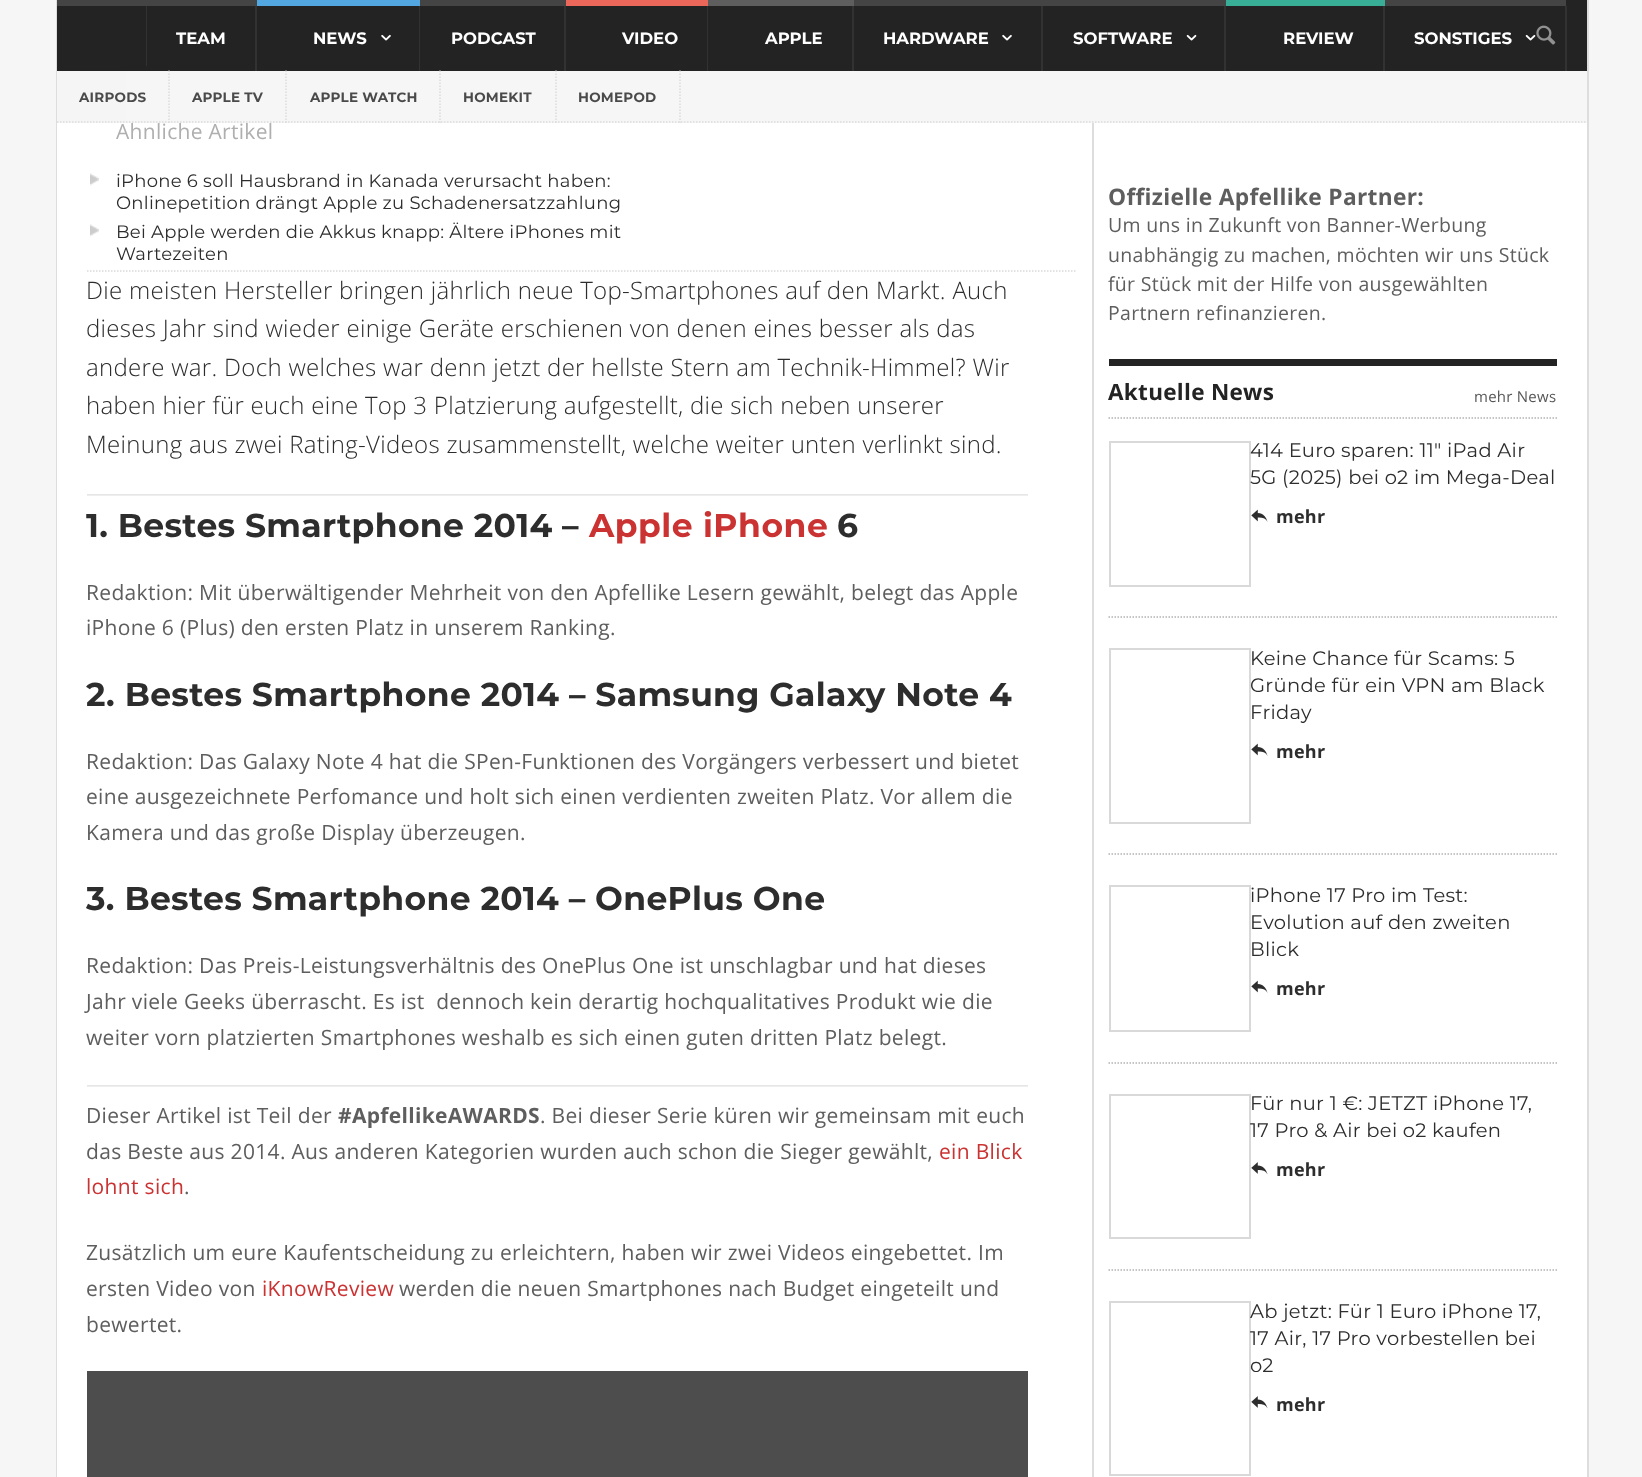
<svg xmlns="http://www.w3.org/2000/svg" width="1642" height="1477">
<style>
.a{font:bold 16.5px Montserrat;fill:#fff}
.b{font:bold 13.5px Montserrat;letter-spacing:0.25px;fill:#4a4a4a}
.c{font:21px Open Sans;letter-spacing:0.3px;fill:#afafaf}
.d{font:18px Montserrat;letter-spacing:0.27px;fill:#2d2d2d}
.e{font:300 24px Open Sans;letter-spacing:0.3px;fill:#2d2d2d}
.f{font:bold 33px Montserrat;letter-spacing:0.3px;fill:#2d2d2d}
.g{font:bold 33px Montserrat;letter-spacing:0.5px;fill:#cb3232}
.h{font:21px Open Sans;letter-spacing:0.32px;fill:#5e5e5e}
.i{font:bold 21px Open Sans;letter-spacing:0.32px;fill:#5e5e5e}
.j{font:21px Open Sans;letter-spacing:0.32px;fill:#cb3232}
.k{font:bold 22.75px Open Sans;letter-spacing:0.3px;fill:#5e5e5e}
.l{font:19.5px Open Sans;letter-spacing:0.3px;fill:#5e5e5e}
.m{font:bold 22.5px Open Sans;letter-spacing:0.3px;fill:#232323}
.n{font:15px Open Sans;letter-spacing:0.25px;fill:#575757}
.o{font:19.5px Montserrat;letter-spacing:0.3px;fill:#2d2d2d}
.p{font:bold 18px Open Sans;letter-spacing:0.27px;fill:#2d2d2d}
</style>
<rect width="100%" height="100%" fill="#f6f6f6"/>
<path fill="none" stroke="#ddd" stroke-width="2" d="M57 -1h1531v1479H57z"/>
<path fill="#fff" d="M57 123h1530v1354H57z"/>
<path fill="#232323" d="M57 0h1530v71H57z"/>
<path fill="#323232" d="M146 6h1v60H146z"/>
<path fill="#444" d="M57 0h200v6H57z"/>
<path fill="#323232" d="M255 6h2v65H255z"/>
<path fill="#323232" d="M419 6h1v65H419z"/>
<path fill="#52a7e0" d="M257 0h163v6H257z"/>
<image href="1.png" x="381" y="34" width="10" height="7"/>
<path fill="#323232" d="M564 6h2v65H564z"/>
<path fill="#444" d="M420 0h146v6H420z"/>
<path fill="#323232" d="M707 6h1v65H707z"/>
<path fill="#eb6759" d="M566 0h142v6H566z"/>
<path fill="#323232" d="M852 6h2v65H852z"/>
<path fill="#5e5e5e" d="M708 0h146v6H708z"/>
<path fill="#323232" d="M1041 6h2v65H1041z"/>
<path fill="#444" d="M854 0h372v6H854z"/>
<image href="1.png" x="1002" y="34" width="10" height="7"/>
<path fill="#323232" d="M1224 6h2v65H1224z"/>
<image href="2.png" x="1186" y="34" width="11" height="7"/>
<path fill="#323232" d="M1383 6h2v65H1383z"/>
<path fill="#39ae97" d="M1226 0h159v6H1226z"/>
<path fill="#323232" d="M1565 6h2v65H1565z"/>
<path fill="#444" d="M1385 0h181v6H1385z"/>
<image href="2.png" x="1525" y="34" width="11" height="7"/>
<image href="3.png" x="1536" y="25" width="20" height="20"/>
<path fill="none" stroke="#d9d9d9" stroke-width="1.5" stroke-dasharray="1.5 1.5" d="M87 271h990"/>
<image href="4.png" x="90" y="173" width="9" height="13"/>
<image href="4.png" x="90" y="224" width="9" height="13"/>
<path fill="#e6e6e6" d="M87 494h941v1H87z"/>
<path fill="#eee" d="M87 495h941v1H87z"/>
<path fill="#e6e6e6" d="M87 1085h941v1H87z"/>
<path fill="#eee" d="M87 1086h941v1H87z"/>
<path fill="#4d4d4d" d="M87 1371h941v106H87z"/>
<path fill="#ddd" d="M1092 123h2v1354H1092z"/>
<path fill="#232323" d="M1109 359h448v7H1109z"/>
<path fill="none" stroke="#b2b2b2" stroke-width="1.5" stroke-dasharray="1.5 1.5" d="M1108.5 418h448.5"/>
<path fill="none" stroke="#b2b2b2" stroke-width="1.5" stroke-dasharray="1.5 1.5" d="M1108.5 617h448.5"/>
<image href="5.png" x="1251" y="509" width="17" height="13"/>
<path fill="none" stroke="#b2b2b2" stroke-width="1.5" stroke-dasharray="1.5 1.5" d="M1108.5 854h448.5"/>
<path fill="none" stroke="#d9d9d9" stroke-width="2" d="M1110 649h140v174H1110z"/>
<image href="5.png" x="1251" y="743" width="17" height="13"/>
<path fill="none" stroke="#b2b2b2" stroke-width="1.5" stroke-dasharray="1.5 1.5" d="M1108.5 1063h448.5"/>
<path fill="none" stroke="#d9d9d9" stroke-width="2" d="M1110 886h140v145H1110z"/>
<image href="5.png" x="1251" y="980" width="17" height="13"/>
<path fill="none" stroke="#b2b2b2" stroke-width="1.5" stroke-dasharray="1.5 1.5" d="M1108.5 1270h448.5"/>
<image href="6.png" x="1251" y="1162" width="17" height="13"/>
<image href="6.png" x="1251" y="1396" width="17" height="13"/>
<text class="a" x="176" y="44">TEAM</text>
<text class="a" x="313" y="44">NEWS</text>
<text class="a" x="451" y="44">PODCAST</text>
<text class="a" x="622" y="44">VIDEO</text>
<text class="a" x="765" y="44">APPLE</text>
<text class="a" x="883" y="44">HARDWARE</text>
<text class="a" x="1073" y="44">SOFTWARE</text>
<text class="a" x="1283" y="44">REVIEW</text>
<text class="a" x="1414" y="44">SONSTIGES</text>
<text class="b" x="192" y="102">APPLE TV</text>
<text class="b" x="310" y="102">APPLE WATCH</text>
<text class="b" x="463" y="102">HOMEKIT</text>
<text class="b" x="578" y="102">HOMEPOD</text>
<text class="c" x="116" y="139">Ähnliche Artikel</text>
<path fill="#f5f5f5" d="M57 71h69v52H57z"/>
<path fill="none" stroke="#dcdcdc" stroke-width="1.5" stroke-dasharray="1.5 1.5" d="M57 122h1530"/>
<path fill="none" stroke="#dcdcdc" stroke-width="1.5" stroke-dasharray="1.5 1.5" d="M680 70.5v52.5"/>
<path fill="none" stroke="#dcdcdc" stroke-width="1.5" stroke-dasharray="1.5 1.5" d="M556 70.5v52.5"/>
<path fill="none" stroke="#dcdcdc" stroke-width="1.5" stroke-dasharray="1.5 1.5" d="M440 70.5v52.5"/>
<path fill="none" stroke="#dcdcdc" stroke-width="1.5" stroke-dasharray="1.5 1.5" d="M286 70.5v52.5"/>
<text class="b" x="79" y="102">AIRPODS</text>
<path fill="none" stroke="#dcdcdc" stroke-width="1.5" stroke-dasharray="1.5 1.5" d="M169 70.5v52.5"/>
<text class="d" x="116" y="187">iPhone 6 soll Hausbrand in Kanada verursacht haben:</text>
<text class="d" x="116" y="209">Onlinepetition drängt Apple zu Schadenersatzzahlung</text>
<text class="d" x="116" y="238">Bei Apple werden die Akkus knapp: Ältere iPhones mit</text>
<text class="d" x="116" y="260">Wartezeiten</text>
<text class="e" x="86" y="299">Die meisten Hersteller bringen jährlich neue Top-Smartphones auf den Markt. Auch</text>
<text class="e" x="86" y="337">dieses Jahr sind wieder einige Geräte erschienen von denen eines besser als das</text>
<text class="e" x="86" y="376">andere war. Doch welches war denn jetzt der hellste Stern am Technik-Himmel? Wir</text>
<text class="e" x="86" y="414">haben hier für euch eine Top 3 Platzierung aufgestellt, die sich neben unserer</text>
<text class="e" x="86" y="453">Meinung aus zwei Rating-Videos zusammenstellt, welche weiter unten verlinkt sind.</text>
<text class="f" x="86" y="537">1. Bestes Smartphone 2014 –</text>
<text class="g" x="589" y="537">Apple iPhone</text>
<text class="f" x="837" y="537">6</text>
<text class="h" x="86" y="600">Redaktion: Mit überwältigender Mehrheit von den Apfellike Lesern gewählt, belegt das Apple</text>
<text class="h" x="86" y="635">iPhone 6 (Plus) den ersten Platz in unserem Ranking.</text>
<text class="f" x="86" y="706">2. Bestes Smartphone 2014 – Samsung Galaxy Note 4</text>
<text class="h" x="86" y="769">Redaktion: Das Galaxy Note 4 hat die SPen-Funktionen des Vorgängers verbessert und bietet</text>
<text class="h" x="86" y="804">eine ausgezeichnete Perfomance und holt sich einen verdienten zweiten Platz. Vor allem die</text>
<text class="h" x="86" y="840">Kamera und das große Display überzeugen.</text>
<text class="f" x="86" y="910">3. Bestes Smartphone 2014 – OnePlus One</text>
<text class="h" x="86" y="973">Redaktion: Das Preis-Leistungsverhältnis des OnePlus One ist unschlagbar und hat dieses</text>
<text class="h" xml:space="preserve" x="86" y="1009">Jahr viele Geeks überrascht. Es ist  dennoch kein derartig hochqualitatives Produkt wie die</text>
<text class="h" x="86" y="1045">weiter vorn platzierten Smartphones weshalb es sich einen guten dritten Platz belegt.</text>
<text class="h" x="86" y="1123">Dieser Artikel ist Teil der</text>
<text class="i" x="338" y="1123">#ApfellikeAWARDS</text>
<text class="h" x="540" y="1123">. Bei dieser Serie küren wir gemeinsam mit euch</text>
<text class="h" x="86" y="1159">das Beste aus 2014. Aus anderen Kategorien wurden auch schon die Sieger gewählt,</text>
<text class="j" x="939" y="1159">ein Blick</text>
<text class="j" x="86" y="1194">lohnt sich</text>
<text class="h" x="184" y="1194">.</text>
<text class="h" x="86" y="1260">Zusätzlich um eure Kaufentscheidung zu erleichtern, haben wir zwei Videos eingebettet. Im</text>
<text class="h" x="86" y="1296">ersten Video von</text>
<text class="j" x="262" y="1296">iKnowReview</text>
<text class="h" x="399" y="1296">werden die neuen Smartphones nach Budget eingeteilt und</text>
<text class="h" x="86" y="1332">bewertet.</text>
<text class="k" x="1108" y="205">Offizielle Apfellike Partner:</text>
<text class="l" x="1108" y="232">Um uns in Zukunft von Banner-Werbung</text>
<text class="l" x="1108" y="262">unabhängig zu machen, möchten wir uns Stück</text>
<text class="l" x="1108" y="291">für Stück mit der Hilfe von ausgewählten</text>
<text class="l" x="1108" y="320">Partnern refinanzieren.</text>
<text class="m" x="1108" y="400">Aktuelle News</text>
<text class="n" x="1474" y="402">mehr News</text>
<text class="o" x="1250" y="457">414 Euro sparen: 11″ iPad Air</text>
<text class="o" x="1250" y="484">5G (2025) bei o2 im Mega-Deal</text>
<path fill="none" stroke="#00000026" stroke-width="2" d="M1110 442h140v144H1110z"/>
<text class="p" x="1276" y="523">mehr</text>
<text class="o" x="1250" y="665">Keine Chance für Scams: 5</text>
<text class="o" x="1250" y="692">Gründe für ein VPN am Black</text>
<text class="o" x="1250" y="719">Friday</text>
<text class="p" x="1276" y="758">mehr</text>
<text class="o" x="1250" y="902">iPhone 17 Pro im Test:</text>
<text class="o" x="1250" y="929">Evolution auf den zweiten</text>
<text class="o" x="1250" y="956">Blick</text>
<text class="p" x="1276" y="995">mehr</text>
<text class="o" x="1250" y="1110">Für nur 1 €: JETZT iPhone 17,</text>
<text class="o" x="1250" y="1137">17 Pro &amp; Air bei o2 kaufen</text>
<path fill="none" stroke="#00000026" stroke-width="2" d="M1110 1095h140v143H1110z"/>
<text class="p" x="1276" y="1176">mehr</text>
<text class="o" x="1250" y="1318">Ab jetzt: Für 1 Euro iPhone 17,</text>
<text class="o" x="1250" y="1345">17 Air, 17 Pro vorbestellen bei</text>
<path fill="none" stroke="#00000026" stroke-width="2" d="M1110 1302h140v173H1110z"/>
<text class="o" x="1250" y="1372">o2</text>
<text class="p" x="1276" y="1411">mehr</text>
</svg>
